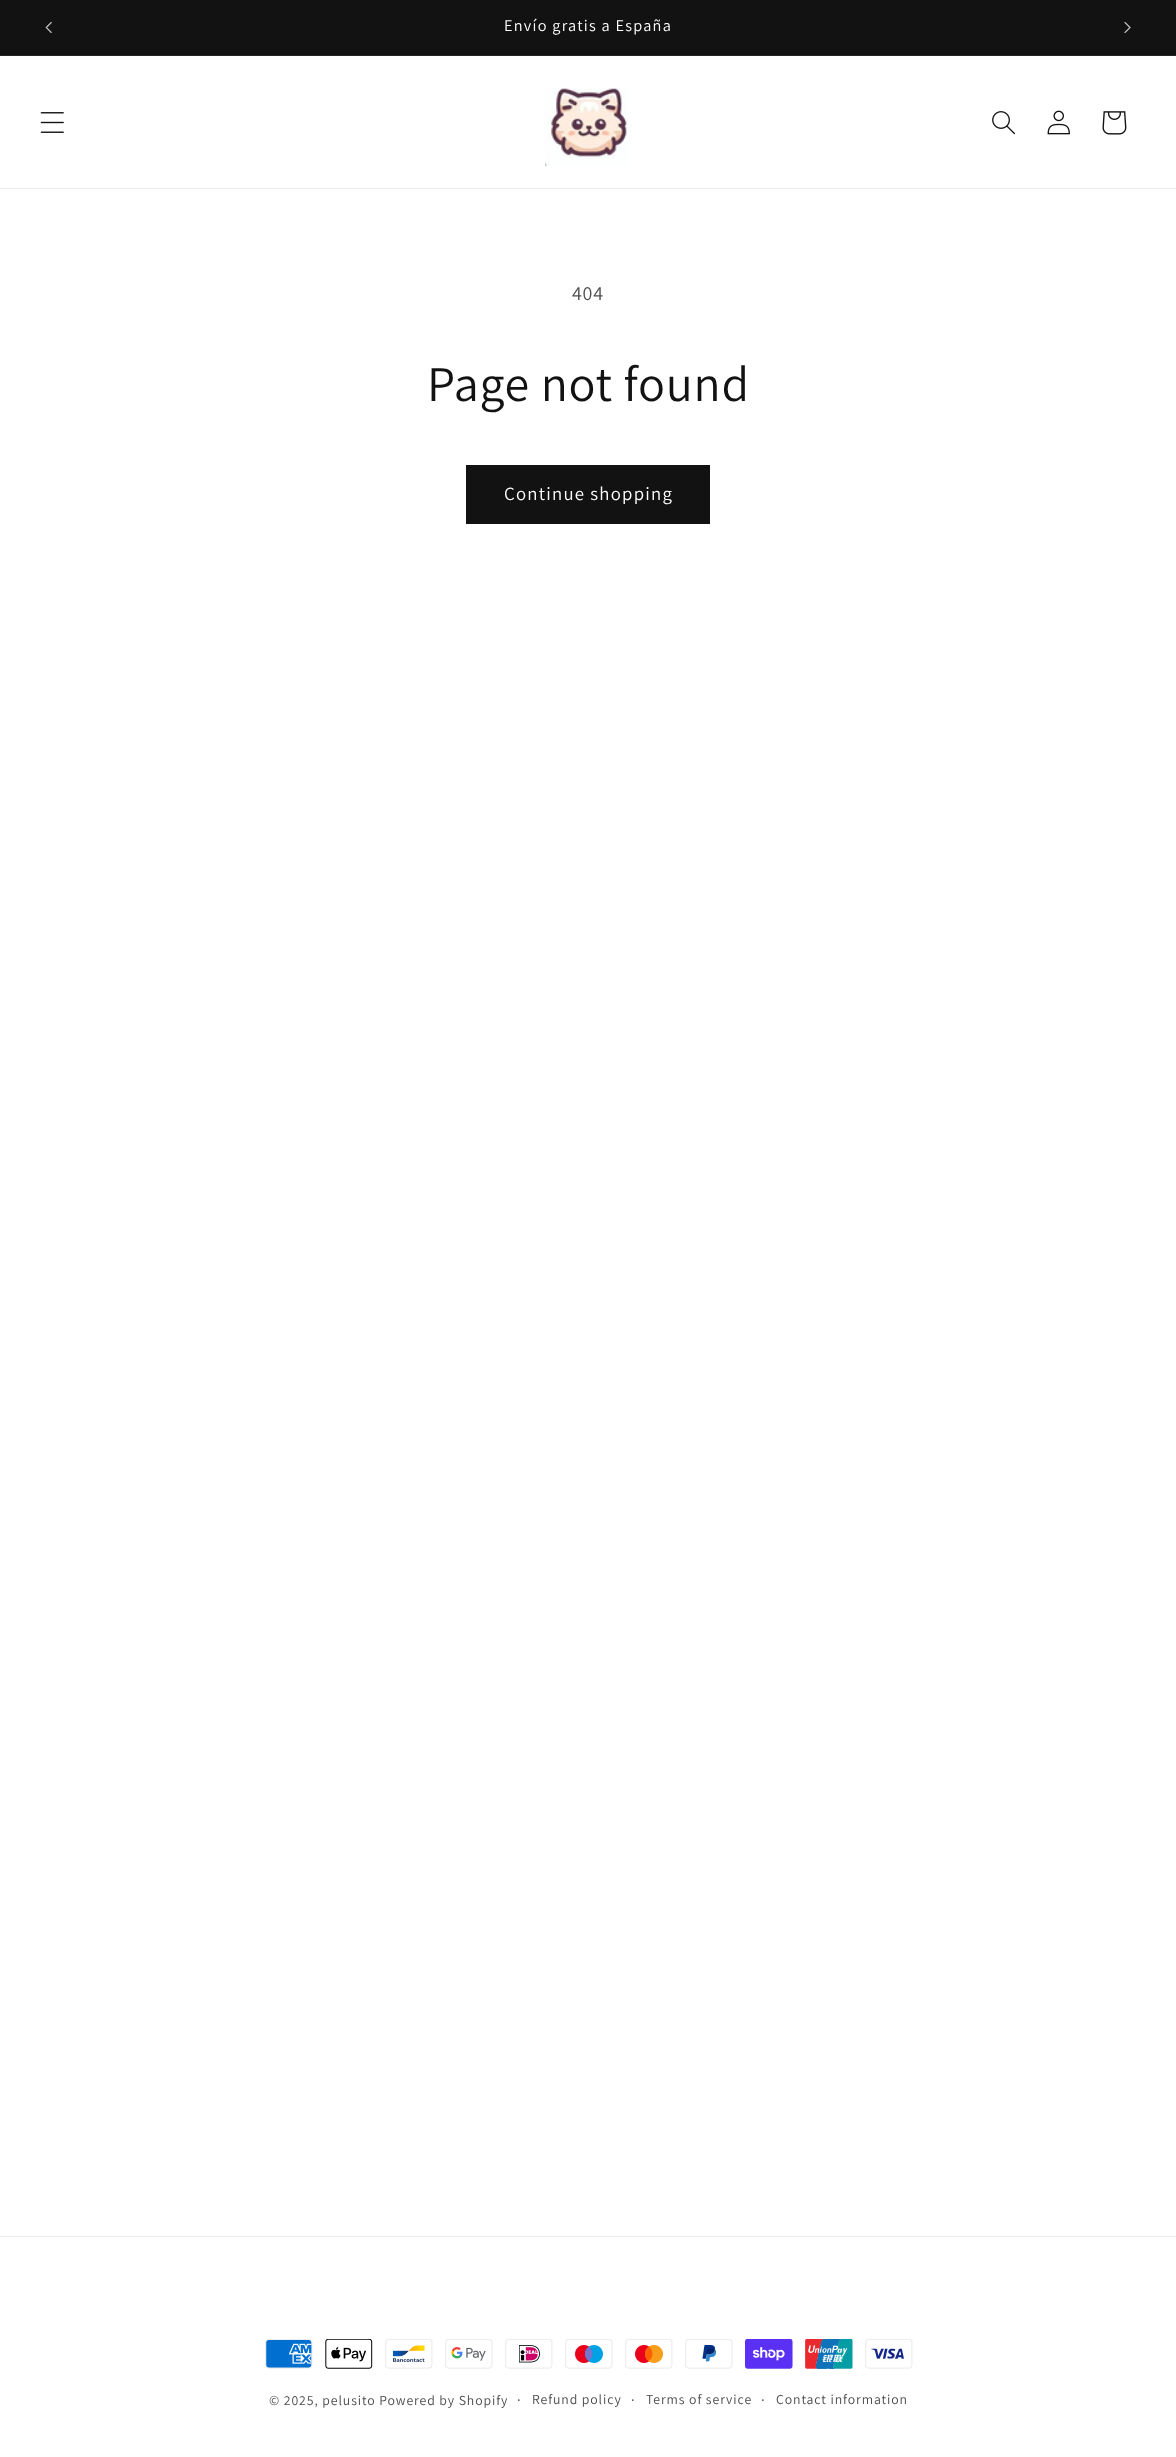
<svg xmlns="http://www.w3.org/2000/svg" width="1176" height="2457">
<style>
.a{font:16.25px Assistant;letter-spacing:1.25px;fill:#fff}
.b{font:20px Assistant;letter-spacing:0.75px;fill:#4d4d4d}
.c{font:50px Assistant;letter-spacing:0.75px;fill:#121212}
.d{font:18.75px Assistant;letter-spacing:1.25px;fill:#fff}
.e{font:13.75px Assistant;letter-spacing:0.9px;fill:#4d4d4d}
.f{font:15px Assistant;letter-spacing:0.9px;fill:#4d4d4d}
</style>
<rect width="100%" height="100%" fill="#fff"/>
<path fill="#121212" d="M0 0h1176v55H0z"/>
<path fill="#252525" d="M0 55h1176v1H0z"/>
<image href="1.png" x="45" y="21" width="7" height="12"/>
<image href="2.png" x="1124" y="22" width="7" height="11"/>
<path fill="#ececec" d="M0 188h1176v1H0z"/>
<image href="3.png" x="40" y="112" width="24" height="21"/>
<image href="4.png" x="545" y="88" width="84" height="79"/>
<image href="5.png" x="992" y="111" width="23" height="24"/>
<image href="6.png" x="1047" y="110" width="23" height="25"/>
<image href="7.png" x="1102" y="111" width="25" height="24"/>
<path fill="#121212" d="M466 465h244v59H466z"/>
<path fill="#ececec" d="M0 2236h1176v1H0z"/>
<image href="8.png" x="265" y="2339" width="48" height="30"/>
<image href="9.png" x="325" y="2339" width="48" height="30"/>
<image href="10.png" x="385" y="2339" width="48" height="30"/>
<image href="11.png" x="445" y="2339" width="48" height="30"/>
<image href="12.png" x="505" y="2339" width="48" height="30"/>
<image href="13.png" x="565" y="2339" width="48" height="30"/>
<image href="14.png" x="625" y="2339" width="48" height="30"/>
<image href="15.png" x="685" y="2339" width="48" height="30"/>
<image href="16.png" x="745" y="2339" width="48" height="30"/>
<image href="17.png" x="805" y="2339" width="48" height="30"/>
<image href="18.png" x="865" y="2339" width="48" height="30"/>
<text class="a" x="504" y="31">Envío gratis a España</text>
<text class="b" x="572" y="300">404</text>
<text class="c" x="427" y="401">Page not found</text>
<text class="d" x="504" y="500">Continue shopping</text>
<text class="e" x="269" y="2405">© 2025, pelusito Powered by Shopify</text>
<text class="f" x="517" y="2405">·</text>
<text class="e" x="532" y="2404">Refund policy</text>
<text class="f" x="631" y="2405">·</text>
<text class="e" x="646" y="2404">Terms of service</text>
<text class="f" x="761" y="2405">·</text>
<text class="e" x="776" y="2404">Contact information</text>
</svg>
